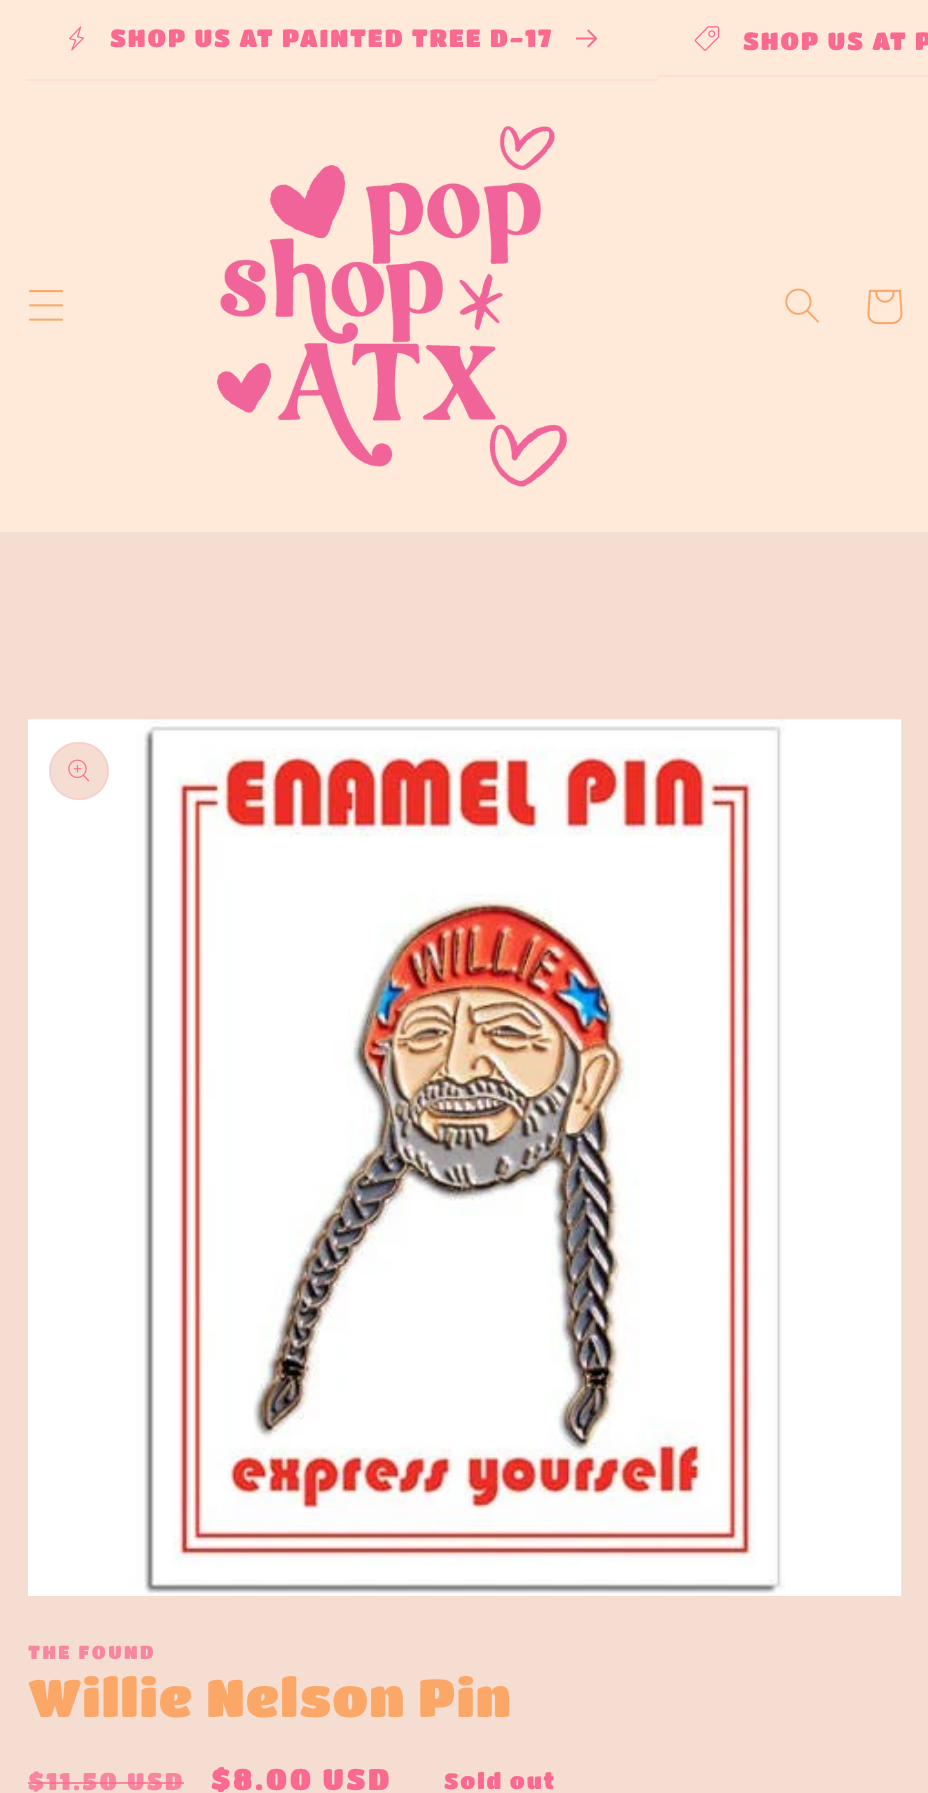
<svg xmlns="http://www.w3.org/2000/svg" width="928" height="1793">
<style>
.a{font:24.5px Titan One;letter-spacing:1.85px;fill:#fa6990}
.b{font:18.5px Titan One;letter-spacing:2.4px;fill:#f986a1}
.c{font:52.5px Titan One;letter-spacing:1px;fill:#faa767}
.d{font:24px Titan One;letter-spacing:2.4px;fill:#f986a1}
.e{font:29.5px Titan One;letter-spacing:2.4px;fill:#fa6990}
.f{font:22px Titan One;letter-spacing:1.85px;fill:#fa6990}
</style>
<rect width="100%" height="100%" fill="#f5ddd2"/>
<path fill="#ffe9d9" d="M0 0h928v532H0z"/>
<path fill="#ffdfd3" d="M26 79h632v2H26z"/>
<image href="1.png" x="69" y="26" width="15" height="25"/>
<image href="2.png" x="576" y="29" width="22" height="19"/>
<path fill="#ffdfd3" d="M658 75h270v2H658z"/>
<image href="3.png" x="694" y="26" width="26" height="25"/>
<image href="4.png" x="29" y="290" width="35" height="31"/>
<image href="5.png" x="217" y="126" width="350" height="361"/>
<image href="6.png" x="785" y="288" width="34" height="35"/>
<image href="7.png" x="867" y="289" width="36" height="36"/>
<image href="8.png" x="28" y="719" width="874" height="877"/>
<rect fill="#f5ddd2" x="49" y="742" width="60" height="58" rx="29"/>
<rect fill="none" stroke="#fa69901a" stroke-width="2" x="50" y="743" width="58" height="56" rx="28"/>
<image href="9.png" x="68" y="759" width="21" height="23"/>
<text class="a" x="110" y="47">SHOP US AT PAINTED TREE D-17</text>
<text class="a" x="743" y="50">SHOP US AT P</text>
<text class="b" x="28" y="1659">THE FOUND</text>
<text class="c" x="28" y="1717">Willie Nelson Pin</text>
<text class="d" x="28" y="1790">$11.50 USD</text>
<path fill="#fa6990bf" d="M28 1782h156v2H28z"/>
<text class="e" x="211" y="1790">$8.00 USD</text>
<text class="f" x="444" y="1789">Sold out</text>
</svg>
